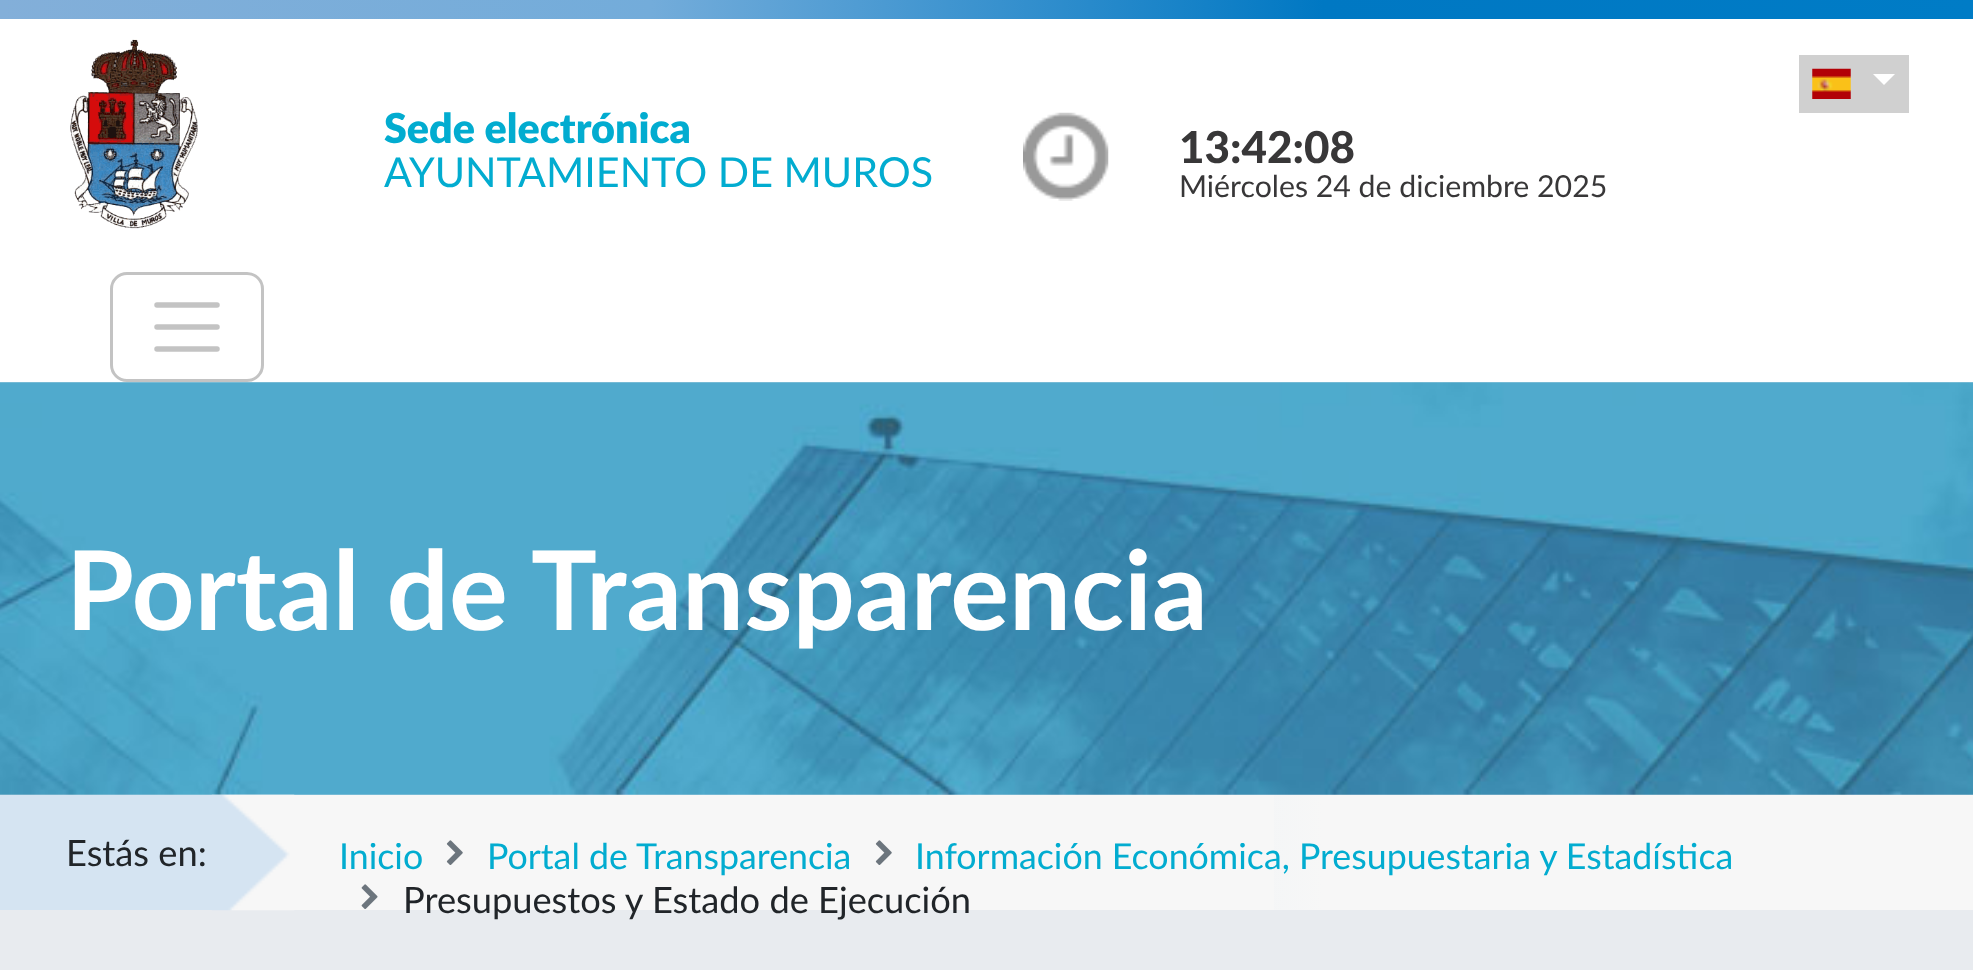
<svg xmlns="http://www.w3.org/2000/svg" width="1973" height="970">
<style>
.a{font:900 41.25px 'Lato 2';fill:#02acd0}
.b{font:41.25px Lato;fill:#02acd0}
.c{font:900 44px Lato;fill:#383738}
.d{font:30.25px Lato;fill:#383738}
.e{font:bold 110px Lato;fill:#fff}
.f{font:36.25px Lato;fill:#212529}
.g{font:35.75px Lato;fill:#02acd0}
</style>
<defs>
<linearGradient id="g1" gradientUnits="userSpaceOnUse" x1="0" y1="10" x2="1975" y2="10"><stop offset="0" stop-color="#83afd9"/><stop offset="0.33" stop-color="#73acda"/><stop offset="0.67" stop-color="#0078c3"/><stop offset="1" stop-color="#007cc6"/></linearGradient>
<linearGradient id="g2" gradientUnits="userSpaceOnUse" x1="0" y1="853" x2="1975" y2="853"><stop offset="0" stop-color="#d5e4f2"/><stop offset="0.33" stop-color="#d5e4f2"/><stop offset="0.67" stop-color="#f7f7f7"/><stop offset="1" stop-color="#f7f7f7"/></linearGradient>
</defs>
<rect width="100%" height="100%" fill="#e8ebef"/>
<path fill="url(#g1)" d="M0 0h1973v19H0z"/>
<path fill="#fff" d="M0 19h1973v363H0z"/>
<image href="1.png" x="70" y="39" width="128" height="190"/>
<path fill="#d0d0d0" d="M1799 55h110v58H1799z"/>
<image href="2.png" x="1812" y="68" width="39" height="31"/>
<path fill="#fff" d="M1873 74h22l-11 11z"/>
<image href="3.png" x="1023" y="112" width="86" height="89"/>
<rect fill="none" stroke="#c3c3c3" stroke-width="3" x="111.5" y="273.5" width="151" height="107" rx="15.5"/>
<path fill="none" stroke="#c3c3c3" stroke-width="5.5" stroke-linecap="round" d="M157 305h60m-60 22h60m-60 22h60"/>
<image href="4.png" x="0" y="382" width="1973" height="413"/>
<path fill="url(#g2)" d="M0 795h1973v115H0z"/>
<path fill="#f7f7f7" d="M294 795h980v115H294z"/>
<image href="5.png" x="211" y="794" width="84" height="117"/>
<image href="6.png" x="446" y="840" width="17" height="25"/>
<image href="6.png" x="875" y="840" width="17" height="25"/>
<image href="7.png" x="361" y="884" width="17" height="25"/>
<text class="a" x="384" y="143">Sede electrónica</text>
<text class="b" x="384" y="187">AYUNTAMIENTO DE MUROS</text>
<text class="c" x="1179" y="163">13:42:08</text>
<text class="d" x="1179" y="197">Miércoles 24 de diciembre 2025</text>
<text class="e" x="66" y="630">Portal de Transparencia</text>
<text class="f" x="66" y="866">Estás en:</text>
<text class="g" x="339" y="869">Inicio</text>
<text class="g" x="487" y="869">Portal de Transparencia</text>
<text class="g" x="915" y="869">Información Económica, Presupuestaria y Estadística</text>
<text class="f" x="403" y="913">Presupuestos y Estado de Ejecución</text>
</svg>
